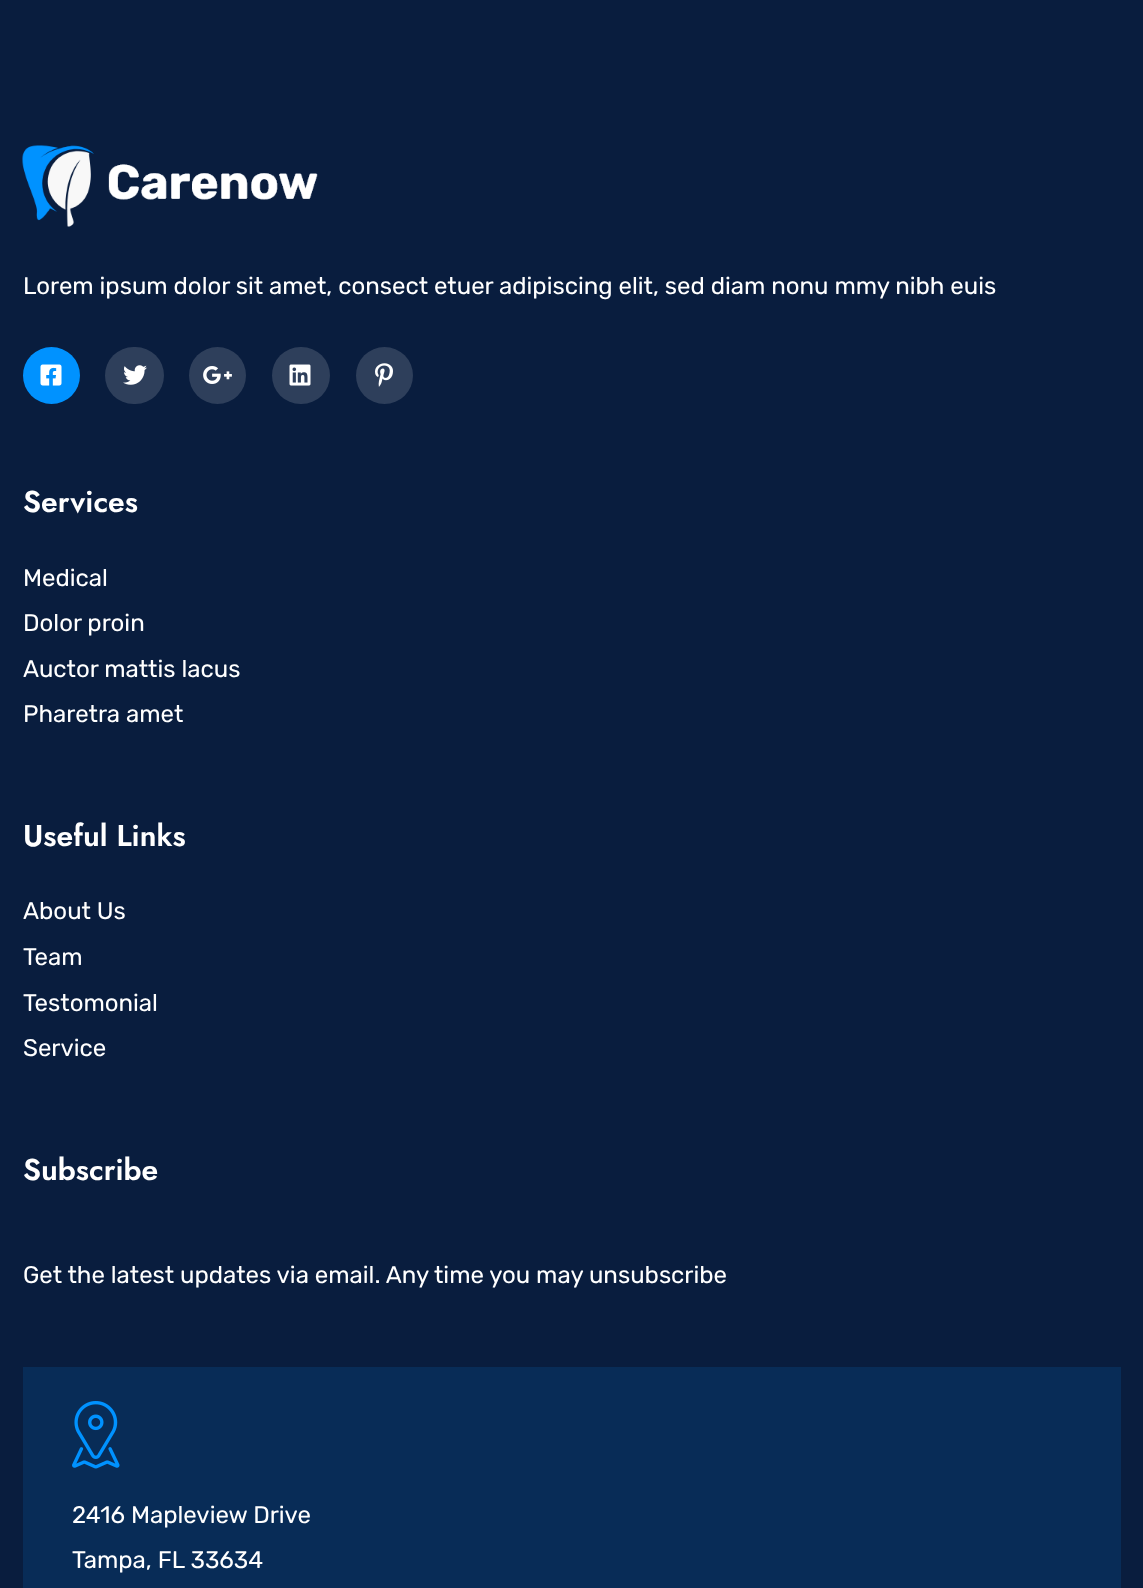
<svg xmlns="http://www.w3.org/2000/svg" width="1143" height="1588">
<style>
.a{font:24px Rubik;fill:#fff}
.b{font:600 30px Jost;fill:#fff}
</style>
<rect width="100%" height="100%" fill="#091d3e"/>
<image href="1.png" x="22" y="145" width="296" height="82"/>
<circle fill="#0092ff" cx="51.5" cy="375.5" r="28.5"/>
<image href="2.png" x="40" y="364" width="22" height="22"/>
<rect fill="#2e3f5b" x="105" y="347" width="59" height="57" rx="28.5"/>
<image href="3.png" x="123" y="365" width="24" height="20"/>
<circle fill="#2e3f5b" cx="217.5" cy="375.5" r="28.5"/>
<image href="4.png" x="203" y="366" width="29" height="18"/>
<rect fill="#2e3f5b" x="272" y="347" width="58" height="57" rx="28.5"/>
<image href="5.png" x="289" y="364" width="22" height="22"/>
<circle fill="#2e3f5b" cx="384.5" cy="375.5" r="28.5"/>
<image href="6.png" x="375" y="363" width="18" height="24"/>
<path fill="#082c57" d="M23 1367h1098v221H23z"/>
<image href="7.png" x="72" y="1401" width="48" height="68"/>
<text class="a" x="23" y="294">Lorem ipsum dolor sit amet, consect etuer adipiscing elit, sed diam nonu mmy nibh euis</text>
<text class="b" x="23" y="512">Services</text>
<text class="a" x="23" y="586">Medical</text>
<text class="a" x="23" y="631">Dolor proin</text>
<text class="a" x="23" y="677">Auctor mattis lacus</text>
<text class="a" x="23" y="722">Pharetra amet</text>
<text class="b" x="23" y="846">Useful Links</text>
<text class="a" x="23" y="919">About Us</text>
<text class="a" x="23" y="965">Team</text>
<text class="a" x="23" y="1011">Testomonial</text>
<text class="a" x="23" y="1056">Service</text>
<text class="b" x="23" y="1180">Subscribe</text>
<text class="a" x="23" y="1283">Get the latest updates via email. Any time you may unsubscribe</text>
<text class="a" x="72" y="1523">2416 Mapleview Drive</text>
<text class="a" x="72" y="1568">Tampa, FL 33634</text>
</svg>
